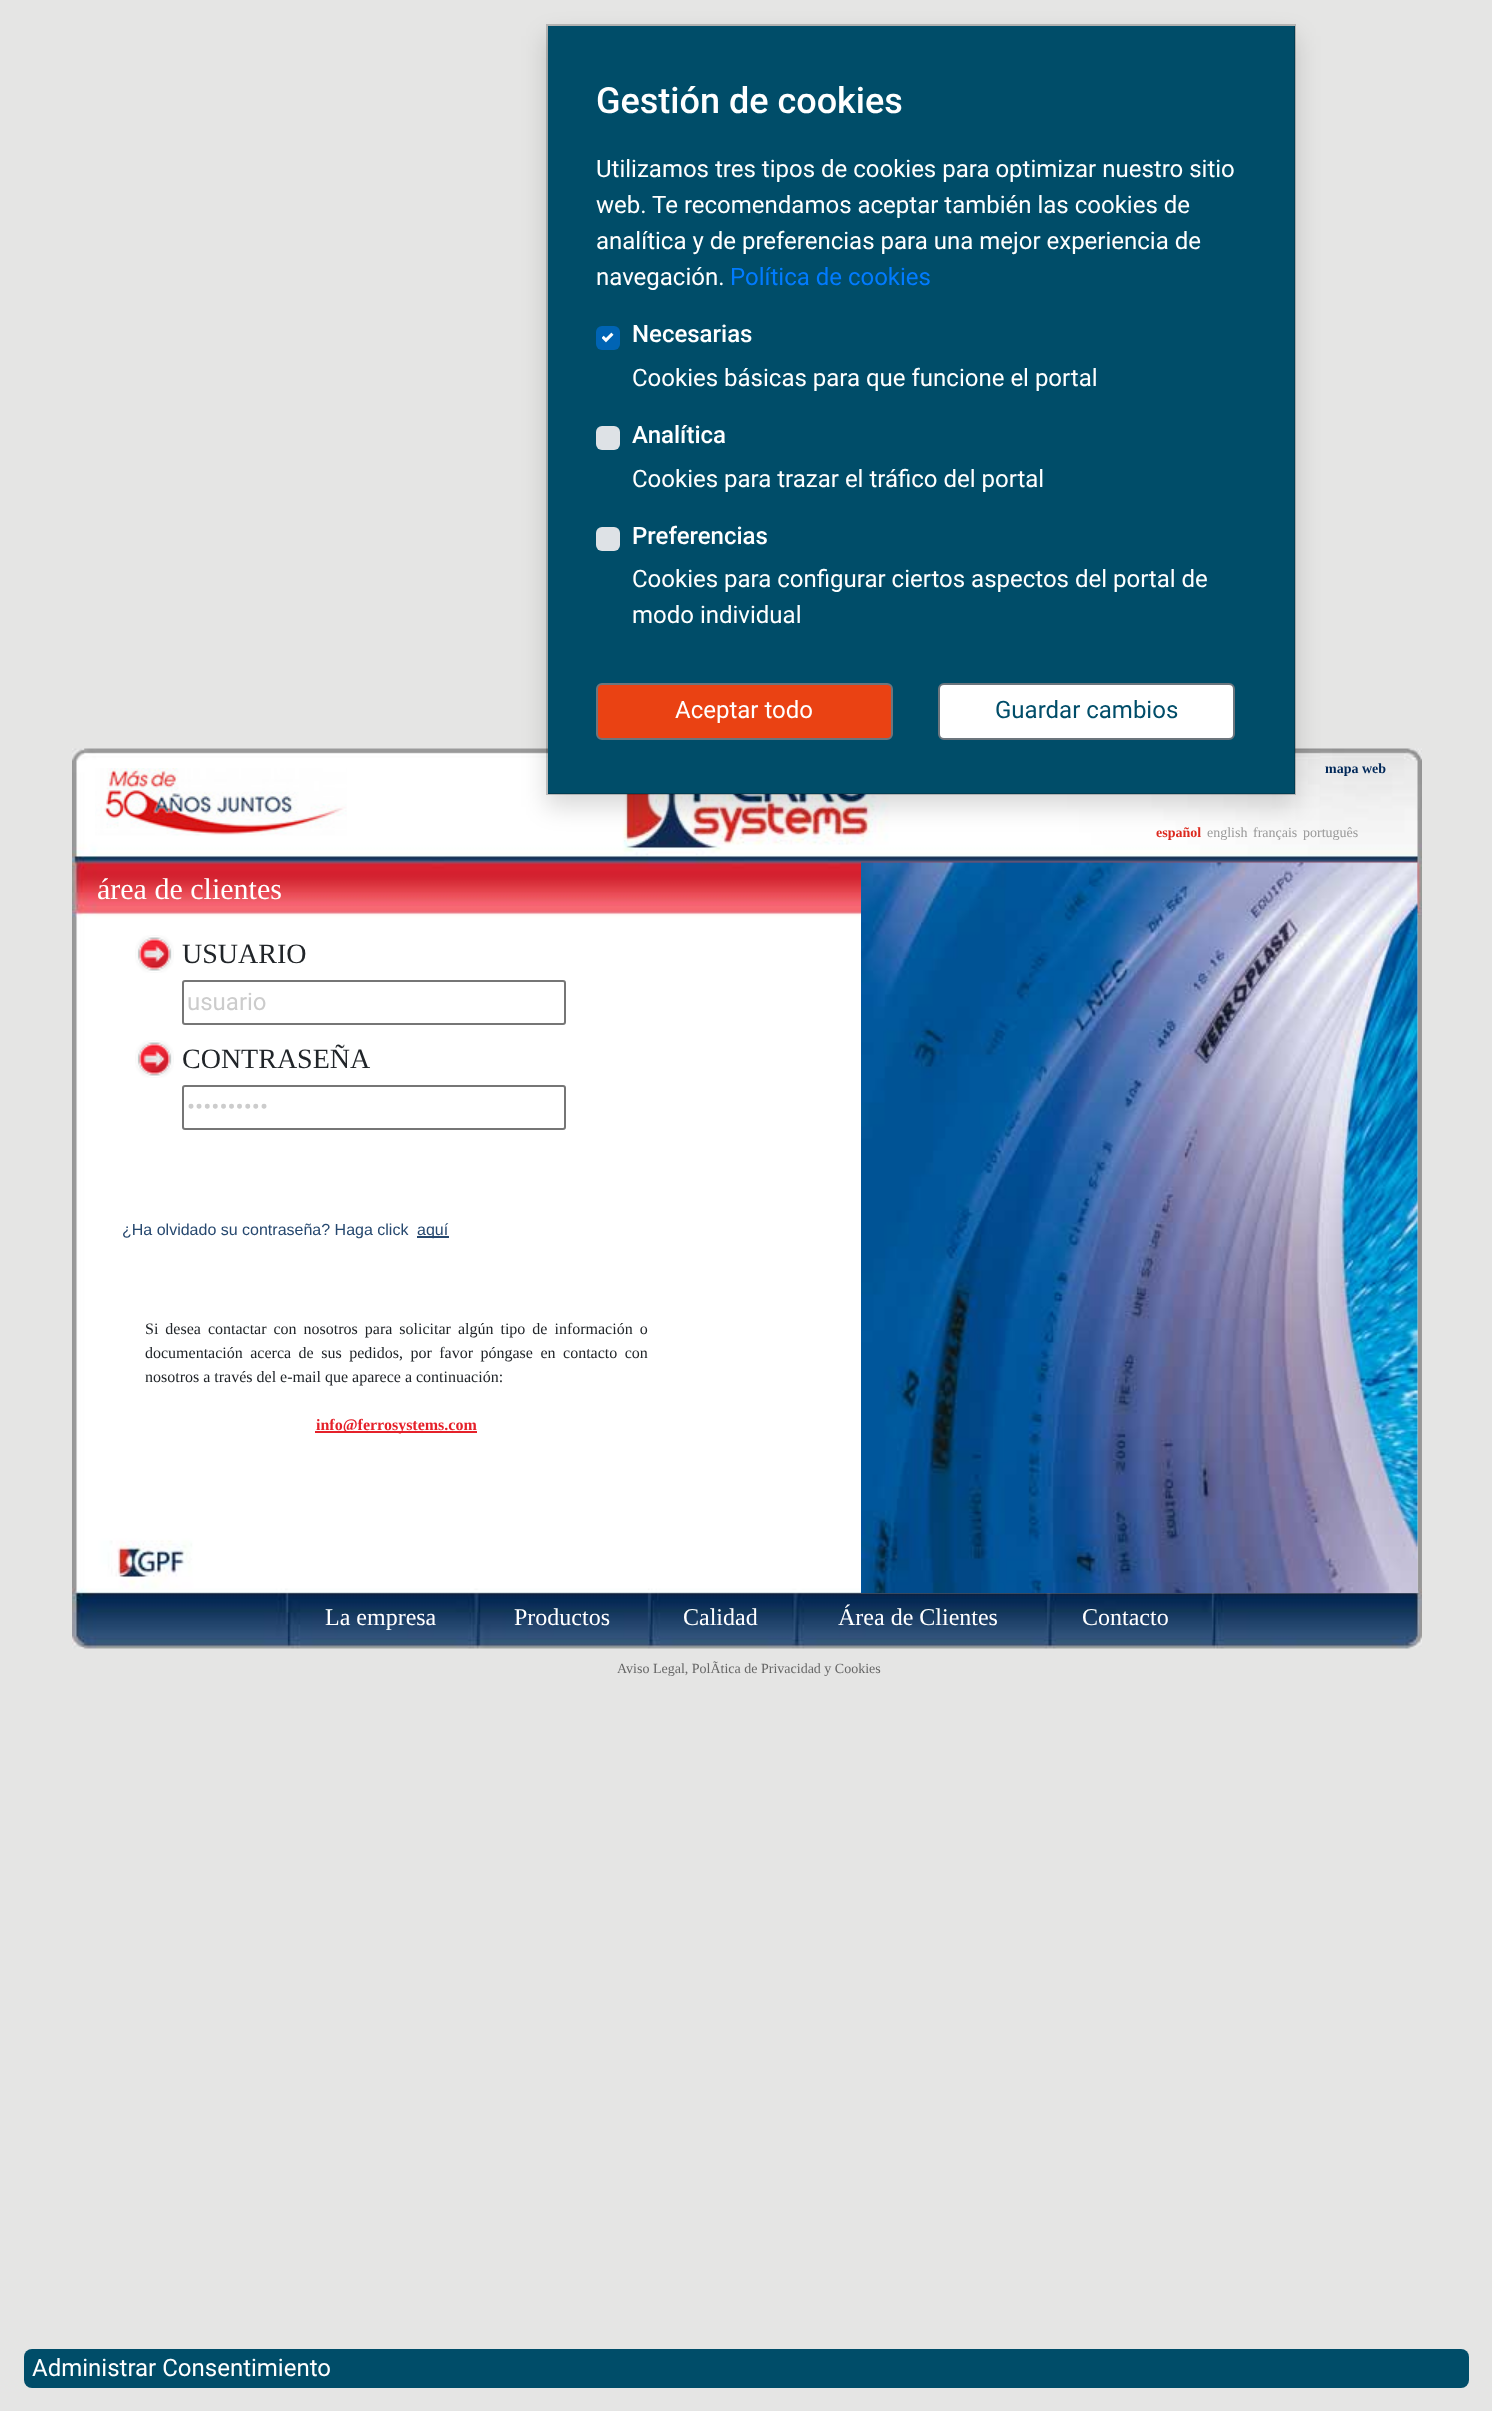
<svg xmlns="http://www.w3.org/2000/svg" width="1492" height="2411">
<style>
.a{font:500 36px Roboto;fill:#fff}
.b{font:24px Roboto;fill:#fff}
.c{font:24px Roboto;fill:#007bff}
.d{font:500 24px Roboto;fill:#fff}
.e{font:24px Roboto;fill:#004d69}
.f{font:bold 14px Liberation Serif;fill:#002859}
.g{font:bold 14px Liberation Serif;fill:#dc291e}
.h{font:14px Liberation Serif;fill:#999}
.i{font:30px Liberation Serif;fill:#fff}
.j{font:28px Liberation Serif;fill:#212529}
.k{font:24px Roboto;fill:#ccc}
.l{font:16px Liberation Sans;fill:#26486f}
.m{font:16px Liberation Serif;fill:#212529}
.n{font:bold 16px Liberation Serif;fill:#e5212a}
.o{font:24px Liberation Serif;fill:#fff}
.p{font:14px Liberation Serif;fill:#666}
</style>
<rect width="100%" height="100%" fill="#e5e5e4"/>
<image href="2.png" x="72" y="748" width="1350" height="901"/>
<path fill="#00000026" filter="blur(12px)" d="M546 36h750v771H546z"/>
<path fill="#004d69" d="M548 26h747v768H548z"/>
<path fill="none" stroke="#00000033" stroke-width="2" d="M547 25h748v769H547z"/>
<rect fill="#0064b4" x="596" y="326" width="24" height="24" rx="6"/>
<image href="1.png" x="602" y="332" width="12" height="11"/>
<rect fill="#dee2e6" x="596" y="426" width="24" height="24" rx="6"/>
<rect fill="#dee2e6" x="596" y="527" width="24" height="24" rx="6"/>
<rect fill="#ea4213" stroke="#6c757d" stroke-width="2" x="597" y="684" width="295" height="55" rx="5"/>
<rect fill="#fff" stroke="#6c757d" stroke-width="2" x="939" y="684" width="295" height="55" rx="5"/>
<image href="3.png" x="95" y="768" width="252" height="68"/>
<image href="4.png" x="861" y="862" width="557" height="731"/>
<image href="5.png" x="135" y="935" width="39" height="38"/>
<rect fill="none" stroke="#767676" stroke-width="2" x="183" y="981" width="382" height="43" rx="2"/>
<image href="5.png" x="135" y="1040" width="39" height="38"/>
<rect fill="none" stroke="#767676" stroke-width="2" x="183" y="1086" width="382" height="43" rx="2"/>
<path fill="#26486f" d="M417 1236h32v2H417z"/>
<path fill="#e5212a" d="M315 1431h162v2H315z"/>
<rect fill="#004d69" x="24" y="2349" width="1445" height="39" rx="8"/>
<text class="a" x="596" y="113">Gestión de cookies</text>
<text class="b" x="596" y="177">Utilizamos tres tipos de cookies para optimizar nuestro sitio</text>
<text class="b" x="596" y="213">web. Te recomendamos aceptar también las cookies de</text>
<text class="b" x="596" y="249">analítica y de preferencias para una mejor experiencia de</text>
<text class="b" x="596" y="285">navegación.</text>
<text class="c" x="730" y="285">Política de cookies</text>
<text class="d" x="632" y="342">Necesarias</text>
<text class="b" x="632" y="386">Cookies básicas para que funcione el portal</text>
<text class="d" x="632" y="443">Analítica</text>
<text class="b" x="632" y="487">Cookies para trazar el tráfico del portal</text>
<text class="d" x="632" y="544">Preferencias</text>
<text class="b" x="632" y="587">Cookies para configurar ciertos aspectos del portal de</text>
<text class="b" x="632" y="623">modo individual</text>
<text class="b" x="675" y="718">Aceptar todo</text>
<text class="e" x="995" y="718">Guardar cambios</text>
<text class="f" x="1325" y="773">mapa web</text>
<text class="g" x="1156" y="837">español</text>
<text class="h" x="1207" y="837">english</text>
<text class="h" x="1253" y="837">français</text>
<text class="h" x="1303" y="837">português</text>
<text class="i" x="97" y="899">área de clientes</text>
<text class="j" x="182" y="963">USUARIO</text>
<text class="k" x="187" y="1010">usuario</text>
<text class="j" x="182" y="1068">CONTRASEÑA</text>
<text class="k" x="187" y="1115">••••••••••</text>
<text class="l" x="122" y="1235">¿Ha olvidado su contraseña? Haga click</text>
<text class="l" x="417" y="1235">aquí</text>
<text class="m" x="145" y="1334" word-spacing="3">Si desea contactar con nosotros para solicitar algún tipo de información o</text>
<text class="m" x="145" y="1358" word-spacing="3.5">documentación acerca de sus pedidos, por favor póngase en contacto con</text>
<text class="m" x="145" y="1382">nosotros a través del e-mail que aparece a continuación:</text>
<text class="n" x="316" y="1430">info@ferrosystems.com</text>
<text class="o" x="325" y="1625">La empresa</text>
<text class="o" x="514" y="1625">Productos</text>
<text class="o" x="683" y="1625">Calidad</text>
<text class="o" x="838" y="1625">Área de Clientes</text>
<text class="o" x="1082" y="1625">Contacto</text>
<text class="p" x="617" y="1673">Aviso Legal, PolÃtica de Privacidad y Cookies</text>
<text class="b" x="32" y="2376">Administrar Consentimiento</text>
</svg>
